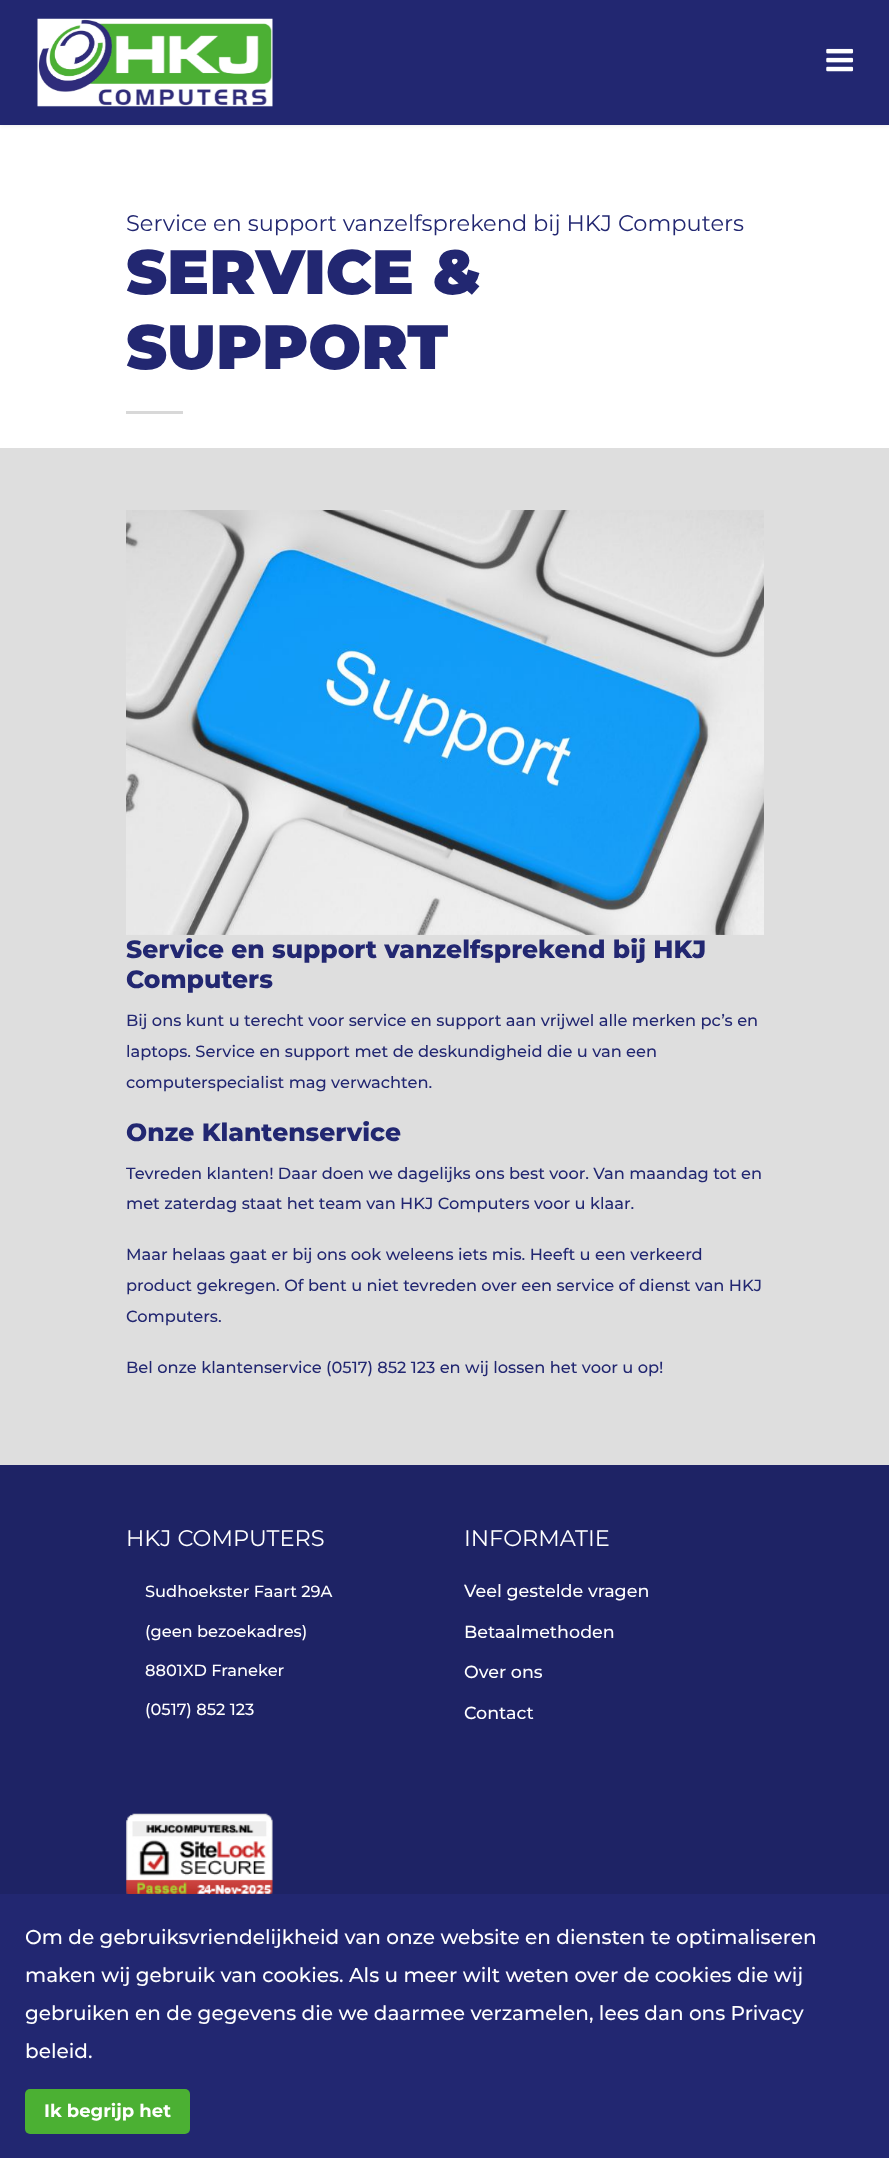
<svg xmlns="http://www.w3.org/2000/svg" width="889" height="2158">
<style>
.a{font:22.5px Montserrat;fill:#222771}
.b{font:900 62.5px Montserrat;fill:#222771}
.c{font:800 25px Montserrat;fill:#222771}
.d{font:500 16.25px Montserrat;fill:#222771}
.e{font:22.5px Montserrat;fill:#fff}
.f{font:500 16.25px Montserrat;fill:#fff}
.g{font:500 17.5px Montserrat;fill:#fff}
.h{font:500 20px Montserrat;fill:#fff}
.i{font:bold 18px Montserrat;fill:#fff}
</style>
<rect width="100%" height="100%" fill="#fff"/>
<path fill="#0000001a" filter="blur(2.5px)" d="M0 0h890v125H0z"/>
<path fill="#222771" d="M0 0h889v125H0z"/>
<image href="1.png" x="37" y="18" width="236" height="89"/>
<image href="2.png" x="826" y="48" width="28" height="24"/>
<path fill="#d8d8d8" d="M126 411h57v3H126z"/>
<path fill="#dedede" d="M0 448h889v1017H0z"/>
<image href="3.png" x="126" y="510" width="638" height="425"/>
<path fill="#1e2365" d="M0 1465h889v429H0z"/>
<image href="4.png" x="126" y="1813" width="147" height="81"/>
<path fill="#222771" d="M0 1894h889v264H0z"/>
<rect fill="#4bb033" x="25" y="2089" width="165" height="45" rx="5"/>
<text class="a" x="126" y="231">Service en support vanzelfsprekend bij HKJ Computers</text>
<text class="b" x="126" y="294">SERVICE &amp;</text>
<text class="b" x="126" y="369">SUPPORT</text>
<text class="c" x="126" y="958">Service en support vanzelfsprekend bij HKJ</text>
<text class="c" x="126" y="988">Computers</text>
<text class="d" x="126" y="1026">Bij ons kunt u terecht voor service en support aan vrijwel alle merken pc’s en</text>
<text class="d" x="126" y="1057">laptops. Service en support met de deskundigheid die u van een</text>
<text class="d" x="126" y="1088">computerspecialist mag verwachten.</text>
<text class="c" x="126" y="1141">Onze Klantenservice</text>
<text class="d" x="126" y="1179">Tevreden klanten! Daar doen we dagelijks ons best voor. Van maandag tot en</text>
<text class="d" x="126" y="1209">met zaterdag staat het team van HKJ Computers voor u klaar.</text>
<text class="d" x="126" y="1260">Maar helaas gaat er bij ons ook weleens iets mis. Heeft u een verkeerd</text>
<text class="d" x="126" y="1291">product gekregen. Of bent u niet tevreden over een service of dienst van HKJ</text>
<text class="d" x="126" y="1322">Computers.</text>
<text class="d" x="126" y="1373">Bel onze klantenservice (0517) 852 123 en wij lossen het voor u op!</text>
<text class="e" x="126" y="1546">HKJ COMPUTERS</text>
<text class="f" x="145" y="1597">Sudhoekster Faart 29A</text>
<text class="f" x="145" y="1637">(geen bezoekadres)</text>
<text class="f" x="145" y="1676">8801XD Franeker</text>
<text class="f" x="145" y="1715">(0517) 852 123</text>
<text class="e" x="464" y="1546">INFORMATIE</text>
<text class="g" x="464" y="1597">Veel gestelde vragen</text>
<text class="g" x="464" y="1638">Betaalmethoden</text>
<text class="g" x="464" y="1678">Over ons</text>
<text class="g" x="464" y="1719">Contact</text>
<text class="h" x="25" y="1944">Om de gebruiksvriendelijkheid van onze website en diensten te optimaliseren</text>
<text class="h" x="25" y="1982">maken wij gebruik van cookies. Als u meer wilt weten over de cookies die wij</text>
<text class="h" x="25" y="2020">gebruiken en de gegevens die we daarmee verzamelen, lees dan ons Privacy</text>
<text class="h" x="25" y="2058">beleid.</text>
<text class="i" x="44" y="2117">Ik begrijp het</text>
</svg>
